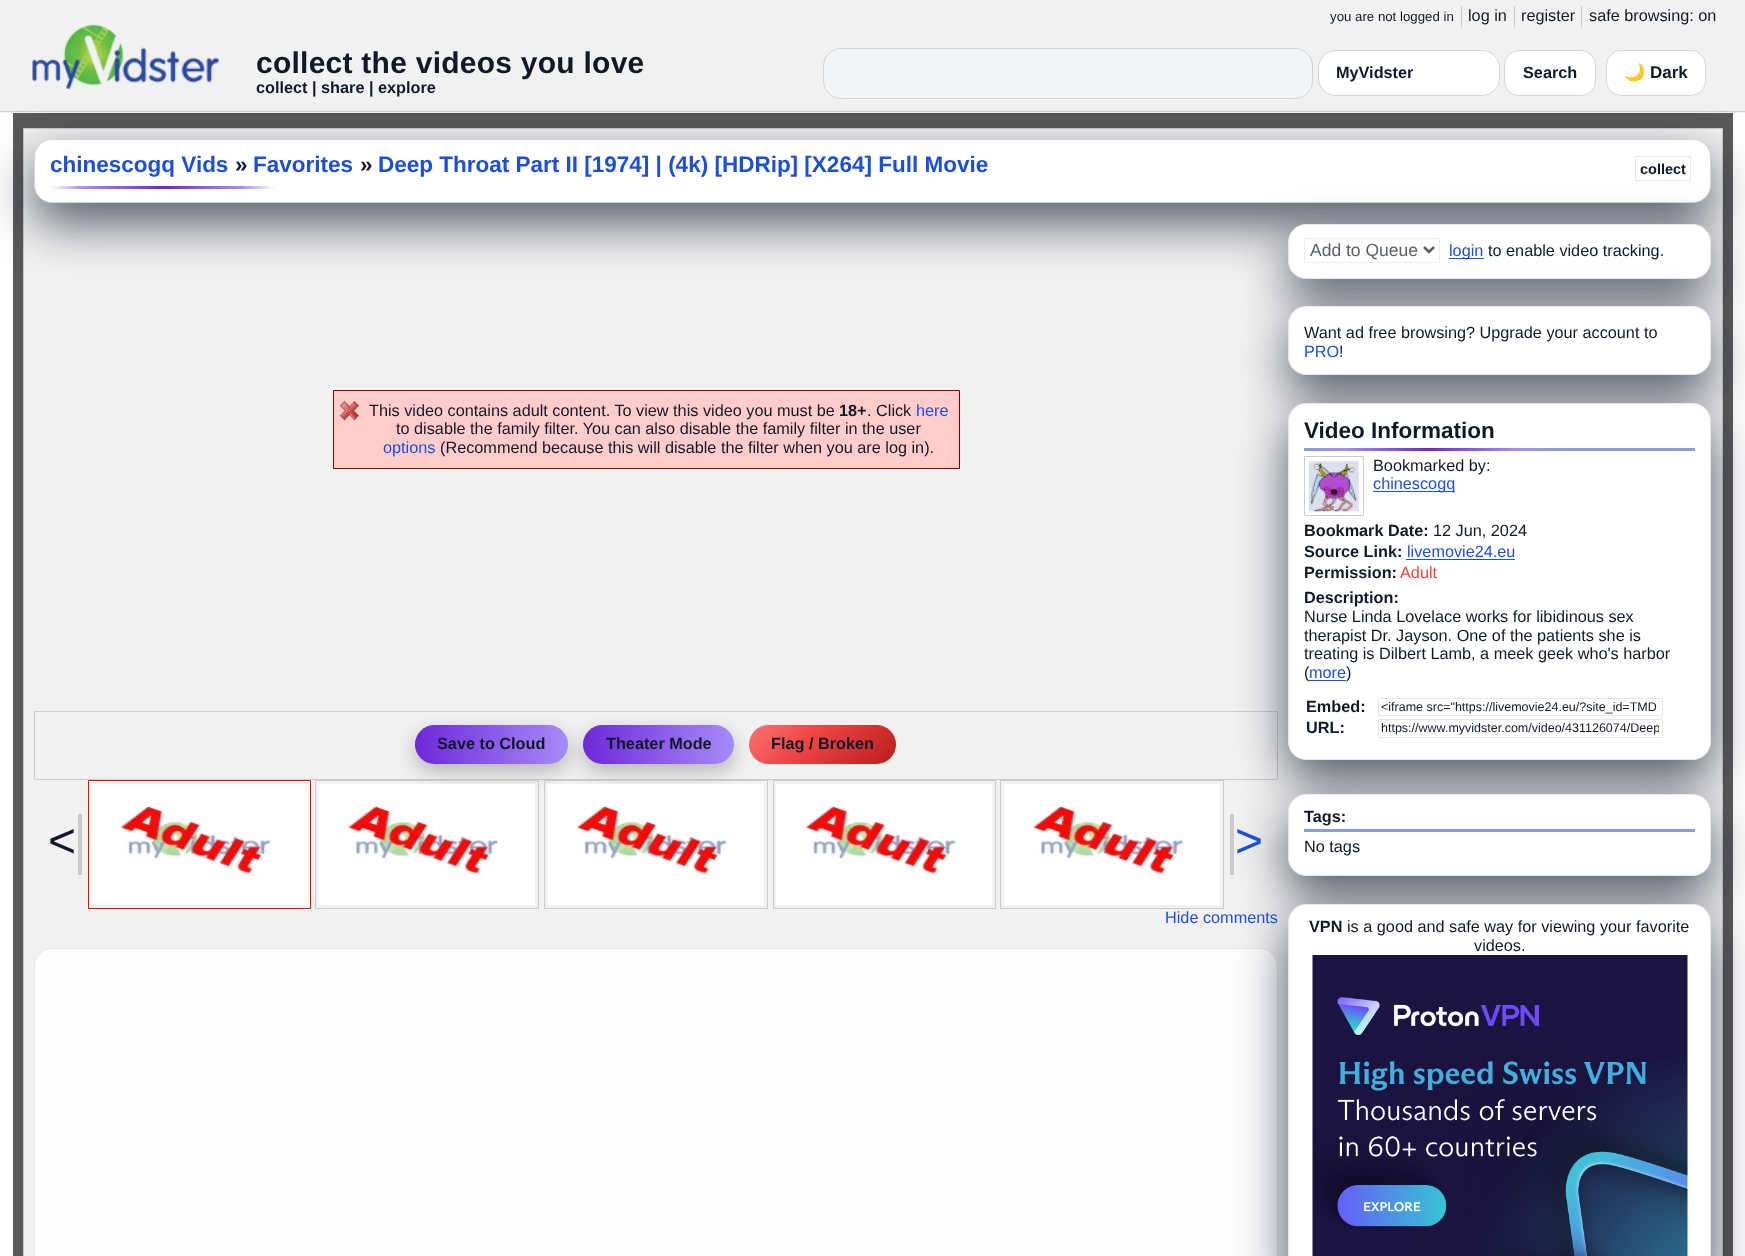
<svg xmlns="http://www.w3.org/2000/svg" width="1745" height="1256">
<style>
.a{font:13.25px Liberation Sans;fill:#111827}
.b{font:16.25px Liberation Sans;fill:#111827}
.c{font:bold 30px Liberation Sans;letter-spacing:0.25px;fill:#111827}
.d{font:bold 16.25px Liberation Sans;fill:#111827}
.e{font:bold 17px Noto Color Emoji;fill:#111827}
.f{font:bold 17px Liberation Sans;fill:#111827}
.g{font:bold 22.5px Liberation Sans;fill:#1d4ed8}
.h{font:bold 22.5px Liberation Sans;fill:#111827}
.i{font:bold 14.5px Liberation Sans;fill:#111827}
.j{font:16.25px Liberation Sans;fill:#1d4ed8}
.k{font:48px Liberation Sans;fill:#111827}
.l{font:48px Liberation Sans;fill:#1d4ed8}
.m{font:17.5px Liberation Sans;fill:#585d68}
.n{font:16.25px Liberation Sans;fill:#ef4444}
.o{font:12.5px Liberation Sans;fill:#111827}
</style>
<defs>
<linearGradient id="g1" gradientUnits="userSpaceOnUse" x1="50" y1="188" x2="275" y2="188"><stop offset="0" stop-color="#fff"/><stop offset="0.15" stop-color="#a78bfa"/><stop offset="0.5" stop-color="#6d28d9"/><stop offset="0.85" stop-color="#a78bfa"/><stop offset="1" stop-color="#fff"/></linearGradient>
<linearGradient id="g2" gradientUnits="userSpaceOnUse" x1="415" y1="744" x2="568" y2="744"><stop offset="0" stop-color="#6d28d9"/><stop offset="1" stop-color="#a78bfa"/></linearGradient>
<linearGradient id="g3" gradientUnits="userSpaceOnUse" x1="583" y1="744" x2="734" y2="744"><stop offset="0" stop-color="#6d28d9"/><stop offset="1" stop-color="#a78bfa"/></linearGradient>
<linearGradient id="g4" gradientUnits="userSpaceOnUse" x1="776" y1="698" x2="869" y2="791"><stop offset="0" stop-color="#f97373"/><stop offset="0.4" stop-color="#ef4444"/><stop offset="1" stop-color="#b91c1c"/></linearGradient>
<linearGradient id="g5" gradientUnits="userSpaceOnUse" x1="1304" y1="449" x2="1554" y2="449"><stop offset="0" stop-color="#879ede"/><stop offset="0.15" stop-color="#a78bfa"/><stop offset="0.5" stop-color="#6d28d9"/><stop offset="0.85" stop-color="#a78bfa"/><stop offset="1" stop-color="#879ede"/></linearGradient>
<clipPath id="clip1"><path d="M1381 721h278v14H1381z"/></clipPath>
</defs>
<rect width="100%" height="100%" fill="#fff"/>
<path fill="#f1f1f1" d="M0 0h1745v113H0z"/>
<path fill="#ccc" d="M0 111h1745v1H0z"/>
<path fill="#595959" d="M13 113h1720v1143H13z"/>
<path fill="#f1f1f1" stroke="#ccc" d="M23.5 128.5h1699v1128H23.5z"/>
<rect fill="#0f172ab3" filter="blur(25px)" x="34" y="159" width="1677" height="64" rx="18"/>
<image href="1.png" x="32" y="24" width="187" height="65"/>
<path fill="#ccc" d="M1461 6h1v22H1461z"/>
<path fill="#ccc" d="M1514 6h1v22H1514z"/>
<path fill="#ccc" d="M1581 6h1v22H1581z"/>
<rect fill="#f3f4f6" stroke="#d1d5db" x="823.5" y="48.5" width="489" height="50" rx="17.5"/>
<rect fill="#fff" stroke="#d1d5db" x="1318.5" y="50.5" width="181" height="45" rx="17.5"/>
<rect fill="#fff" stroke="#d1d5db" x="1504.5" y="50.5" width="91" height="45" rx="14.5"/>
<rect fill="#fff" stroke="#d1d5db" x="1606.5" y="50.5" width="99" height="45" rx="14.5"/>
<rect fill="#fff" stroke="#d1d5db" x="34.5" y="139.5" width="1676" height="63" rx="17.5"/>
<rect fill="url(#g1)" x="50" y="186" width="225" height="3" rx="1.5"/>
<rect fill="#0f172ab3" filter="blur(25px)" x="1288" y="244" width="423" height="55" rx="18"/>
<path fill="none" stroke="#e5e7eb" d="M1635.5 156.5h55v24H1635.5z"/>
<path fill="#fcc" d="M334 391h625v77H334z"/>
<image href="2.png" x="340" y="401" width="19" height="20"/>
<path fill="none" stroke="#800000" d="M333.5 390.5h626v78H333.5z"/>
<path fill="none" stroke="#ccc" d="M34.5 711.5h1243v68H34.5z"/>
<rect fill="#00000040" filter="blur(10px)" x="415" y="733" width="153" height="38" rx="19"/>
<rect fill="url(#g2)" x="415" y="725" width="153" height="39" rx="19.5"/>
<rect fill="#00000040" filter="blur(10px)" x="583" y="733" width="151" height="38" rx="19"/>
<rect fill="url(#g3)" x="583" y="725" width="151" height="39" rx="19.5"/>
<rect fill="url(#g4)" x="749" y="725" width="147" height="39" rx="19.5"/>
<path fill="#ccc" d="M78 814h4v61H78z"/>
<path fill="none" stroke="#f00" d="M88.5 780.5h222v128H88.5z"/>
<image href="3.png" x="91" y="784" width="217" height="121"/>
<path fill="none" stroke="#ccc" d="M315.5 780.5h223v128H315.5z"/>
<image href="4.png" x="319" y="783" width="216" height="122"/>
<path fill="none" stroke="#ccc" d="M544.5 780.5h223v128H544.5z"/>
<image href="5.png" x="547" y="783" width="217" height="122"/>
<path fill="none" stroke="#ccc" d="M773.5 780.5h222v128H773.5z"/>
<image href="3.png" x="776" y="784" width="217" height="121"/>
<rect fill="#fff" stroke="#e5e7eb" x="1288.5" y="224.5" width="422" height="54" rx="17.5"/>
<rect fill="#0f172ab3" filter="blur(25px)" x="1288" y="326" width="423" height="69" rx="18"/>
<rect fill="#fff" stroke="#e5e7eb" x="1288.5" y="306.5" width="422" height="68" rx="17.5"/>
<rect fill="#0f172ab3" filter="blur(25px)" x="1288" y="423" width="423" height="357" rx="18"/>
<rect fill="#fefefe" stroke="#e5e7eb" x="34.5" y="948.5" width="1243" height="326" rx="17.5"/>
<rect fill="#fff" stroke="#e5e7eb" x="1288.5" y="403.5" width="422" height="356" rx="17.5"/>
<rect fill="#0f172ab3" filter="blur(25px)" x="1288" y="814" width="423" height="82" rx="18"/>
<rect fill="#fff" stroke="#e5e7eb" x="1288.5" y="794.5" width="422" height="81" rx="17.5"/>
<rect fill="#0f172ab3" filter="blur(25px)" x="1288" y="924" width="423" height="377" rx="18"/>
<path fill="none" stroke="#ccc" d="M1000.5 780.5h223v128H1000.5z"/>
<image href="6.png" x="1004" y="784" width="216" height="121"/>
<path fill="#ccc" d="M1230 814h4v61H1230z"/>
<path fill="none" stroke="#edeef1" d="M1304.5 238.5h135v24H1304.5z"/>
<path fill="none" stroke="#585d68" stroke-width="2.5" d="M1424 247l5 5l5-5"/>
<path fill="#1d4ed8" d="M1449 258h35v1H1449z"/>
<path fill="#879ede" d="M1304 448h391v3H1304z"/>
<rect fill="url(#g5)" x="1304" y="448" width="250" height="3" rx="1.5"/>
<path fill="none" stroke="#ccc" d="M1304.5 456.5h59v59H1304.5z"/>
<image href="7.png" x="1308" y="461" width="51" height="51"/>
<path fill="#1d4ed8" d="M1373 491h82v1H1373z"/>
<path fill="#1d4ed8" d="M1406 559h109v1H1406z"/>
<path fill="none" stroke="#e5e7eb" d="M1378.5 698.5h284v17H1378.5z"/>
<path fill="none" stroke="#e5e7eb" d="M1378.5 719.5h284v18H1378.5z"/>
<path fill="#879ede" d="M1304 829h391v3H1304z"/>
<rect fill="#fff" stroke="#e5e7eb" x="1288.5" y="904.5" width="422" height="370" rx="17.5"/>
<image href="8.png" x="1312" y="955" width="376" height="301"/>
<text class="a" x="1330" y="21">you are not logged in</text>
<text class="b" x="1468" y="21">log in</text>
<text class="b" x="1521" y="21">register</text>
<text class="b" x="1589" y="21">safe browsing: on</text>
<text class="c" x="256" y="73">collect the videos you love</text>
<text class="d" x="256" y="93">collect | share | explore</text>
<text class="d" x="1336" y="78">MyVidster</text>
<text class="d" x="1523" y="78">Search</text>
<text class="e" x="1624" y="78">🌙</text>
<text class="f" x="1650" y="78">Dark</text>
<text class="g" x="50" y="172">chinescogq Vids</text>
<text class="h" x="235" y="172">»</text>
<text class="g" x="253" y="172">Favorites</text>
<text class="h" x="360" y="172">»</text>
<text class="g" x="378" y="172">Deep Throat Part II [1974] | (4k) [HDRip] [X264] Full Movie</text>
<text class="i" x="1640" y="174">collect</text>
<text class="b" x="369" y="416">This video contains adult content. To view this video you must be</text>
<text class="d" x="839" y="416">18+</text>
<text class="b" x="867" y="416">. Click</text>
<text class="j" x="916" y="416">here</text>
<text class="b" x="396" y="434">to disable the family filter. You can also disable the family filter in the user</text>
<text class="j" x="383" y="453">options</text>
<text class="b" x="440" y="453">(Recommend because this will disable the filter when you are log in).</text>
<text class="d" x="437" y="749">Save to Cloud</text>
<text class="d" x="606" y="749">Theater Mode</text>
<text class="d" x="771" y="749">Flag / Broken</text>
<text class="k" x="48" y="857">&lt;</text>
<text class="l" x="1235" y="857">&gt;</text>
<text class="j" x="1165" y="923">Hide comments</text>
<text class="m" x="1310" y="256">Add to Queue</text>
<text class="j" x="1449" y="256">login</text>
<text class="b" x="1488" y="256">to enable video tracking.</text>
<text class="b" x="1304" y="338">Want ad free browsing? Upgrade your account to</text>
<text class="j" x="1304" y="357">PRO</text>
<text class="b" x="1339" y="357">!</text>
<text class="h" x="1304" y="438">Video Information</text>
<text class="b" x="1373" y="471">Bookmarked by:</text>
<text class="j" x="1373" y="489">chinescogq</text>
<text class="d" x="1304" y="536">Bookmark Date:</text>
<text class="b" x="1433" y="536">12 Jun, 2024</text>
<text class="d" x="1304" y="557">Source Link:</text>
<text class="j" x="1407" y="557">livemovie24.eu</text>
<text class="d" x="1304" y="578">Permission:</text>
<text class="n" x="1400" y="578">Adult</text>
<text class="d" x="1304" y="603">Description:</text>
<text class="b" x="1304" y="622">Nurse Linda Lovelace works for libidinous sex</text>
<text class="b" x="1304" y="641">therapist Dr. Jayson. One of the patients she is</text>
<text class="b" x="1304" y="659">treating is Dilbert Lamb, a meek geek who's harbor</text>
<text class="b" x="1304" y="678">(</text>
<text class="j" x="1309" y="678">more</text>
<path fill="#1d4ed8" d="M1309 680h37v1H1309z"/>
<text class="b" x="1346" y="678">)</text>
<text class="d" x="1306" y="712">Embed:</text>
<text class="o" x="1381" y="711">&lt;iframe src="https://livemovie24.eu/?site_id=TMD</text>
<text class="d" x="1306" y="733">URL:</text>
<g clip-path="url(#clip1)">
<text class="o" x="1381" y="732">https://www.myvidster.com/video/431126074/Deep</text>
</g>
<text class="d" x="1304" y="822">Tags:</text>
<text class="b" x="1304" y="852">No tags</text>
<text class="d" x="1309" y="932">VPN</text>
<text class="b" x="1347" y="932">is a good and safe way for viewing your favorite</text>
<text class="b" x="1474" y="951">videos.</text>
</svg>
